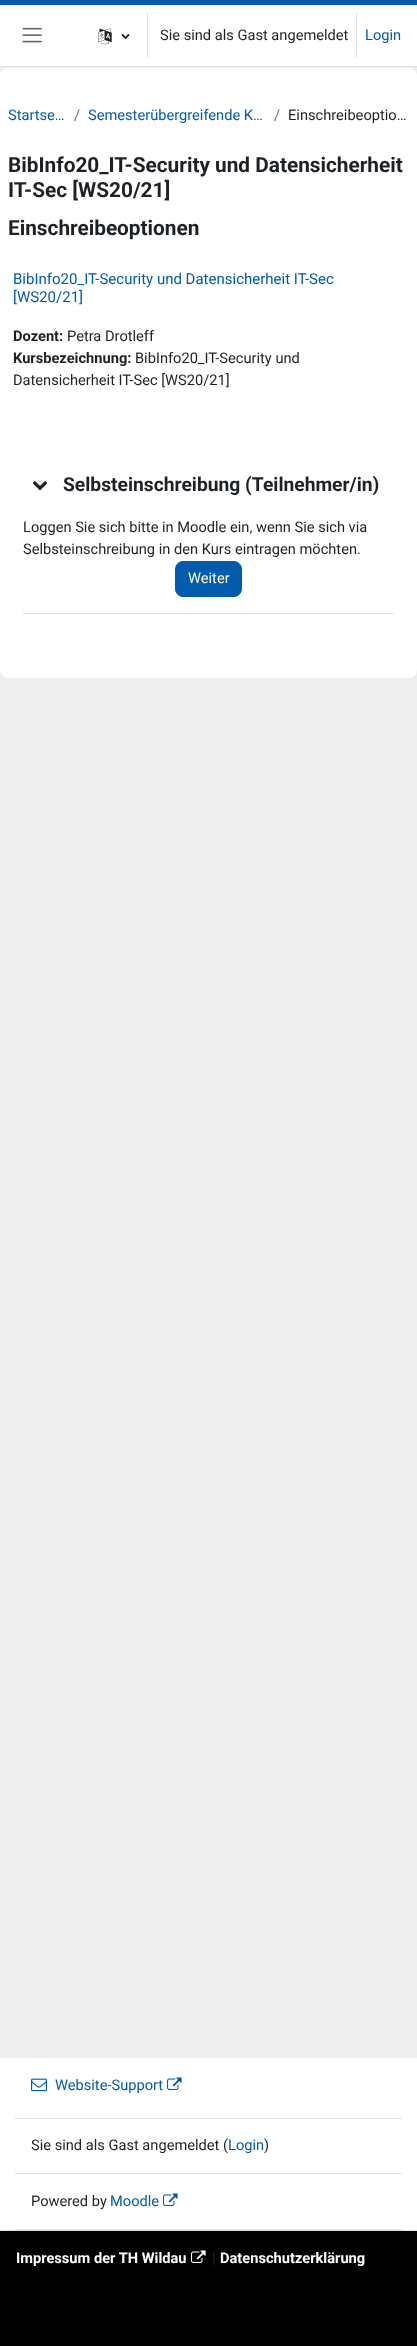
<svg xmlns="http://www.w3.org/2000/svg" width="417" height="2346">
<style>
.a{font:14.65px Roboto;fill:#1d2125}
.b{font:14.65px Roboto;fill:#005bac}
.c{font:14.65px Roboto;fill:#6a737b}
.d{font:bold 20.8px Roboto;fill:#1d2125}
.e{font:15px Roboto;fill:#005bac}
.f{font:bold 14.65px Roboto;fill:#1d2125}
.g{font:bold 19.25px Roboto;fill:#1d2125}
.h{font:14.65px Roboto;fill:#fff}
.i{font:bold 14.65px Roboto;fill:#fff}
</style>
<rect width="100%" height="100%" fill="#eee"/>
<path fill="#fff" d="M0 5h417v61H0z"/>
<path fill="#005bac" d="M0 0h417v5H0z"/>
<path fill="#dee2e6" d="M0 66h417v1H0z"/>
<image href="1.png" x="22" y="27" width="20" height="16"/>
<image href="2.png" x="98" y="28" width="14" height="17"/>
<image href="3.png" x="121" y="34" width="9" height="6"/>
<path fill="#dee2e6" d="M147 13h1v45H147z"/>
<path fill="#dee2e6" d="M356 13h1v45H356z"/>
<rect fill="#fff" y="68" width="417" height="610" rx="8"/>
<path fill="#dee2e6" d="M23 613h371v1H23z"/>
<image href="4.png" x="32" y="481" width="16" height="10"/>
<rect fill="#005bac" stroke="#005bac" x="175.5" y="561.5" width="66" height="35" rx="7.5"/>
<path fill="#fff" d="M0 2058h417v172H0z"/>
<path fill="#dee2e6" d="M15 2118h387v1H15z"/>
<image href="5.png" x="31" y="2078" width="16" height="14"/>
<image href="6.png" x="167" y="2077" width="15" height="13"/>
<path fill="#dee2e6" d="M15 2173h387v1H15z"/>
<path fill="#dee2e6" d="M15 2229h387v1H15z"/>
<image href="6.png" x="163" y="2193" width="15" height="13"/>
<path fill="#000" d="M0 2231h417v115H0z"/>
<path fill="#dee2e6" d="M0 2230h417v1H0z"/>
<image href="7.png" x="191" y="2250" width="15" height="13"/>
<text class="a" x="160" y="40">Sie sind als Gast angemeldet</text>
<text class="b" x="365" y="40">Login</text>
<text class="b" x="8" y="120">Startse…</text>
<text class="c" x="74" y="120">/</text>
<text class="b" x="88" y="120">Semesterübergreifende K…</text>
<text class="c" x="274" y="120">/</text>
<text class="a" x="288" y="120">Einschreibeoptio…</text>
<text class="d" x="8" y="172">BibInfo20_IT-Security und Datensicherheit</text>
<text class="d" x="8" y="197">IT-Sec [WS20/21]</text>
<text class="d" x="8" y="235">Einschreibeoptionen</text>
<text class="e" x="13" y="284">BibInfo20_IT-Security und Datensicherheit IT-Sec</text>
<text class="e" x="13" y="302">[WS20/21]</text>
<text class="f" x="13" y="341">Dozent:</text>
<text class="a" x="67" y="341">Petra Drotleff</text>
<text class="f" x="13" y="363">Kursbezeichnung:</text>
<text class="a" x="135" y="363">BibInfo20_IT-Security und</text>
<text class="a" x="13" y="385">Datensicherheit IT-Sec [WS20/21]</text>
<text class="g" x="63" y="491">Selbsteinschreibung (Teilnehmer/in)</text>
<text class="a" x="23" y="532">Loggen Sie sich bitte in Moodle ein, wenn Sie sich via</text>
<text class="a" x="23" y="554">Selbsteinschreibung in den Kurs eintragen möchten.</text>
<text class="h" x="188" y="583">Weiter</text>
<text class="b" x="55" y="2090">Website-Support</text>
<text class="a" x="31" y="2150">Sie sind als Gast angemeldet (</text>
<text class="b" x="228" y="2150">Login</text>
<text class="a" x="264" y="2150">)</text>
<text class="a" x="31" y="2206">Powered by</text>
<text class="b" x="110" y="2206">Moodle</text>
<text class="i" x="16" y="2263">Impressum der TH Wildau</text>
<text class="f" x="212" y="2263">|</text>
<text class="i" x="220" y="2263">Datenschutzerklärung</text>
</svg>
